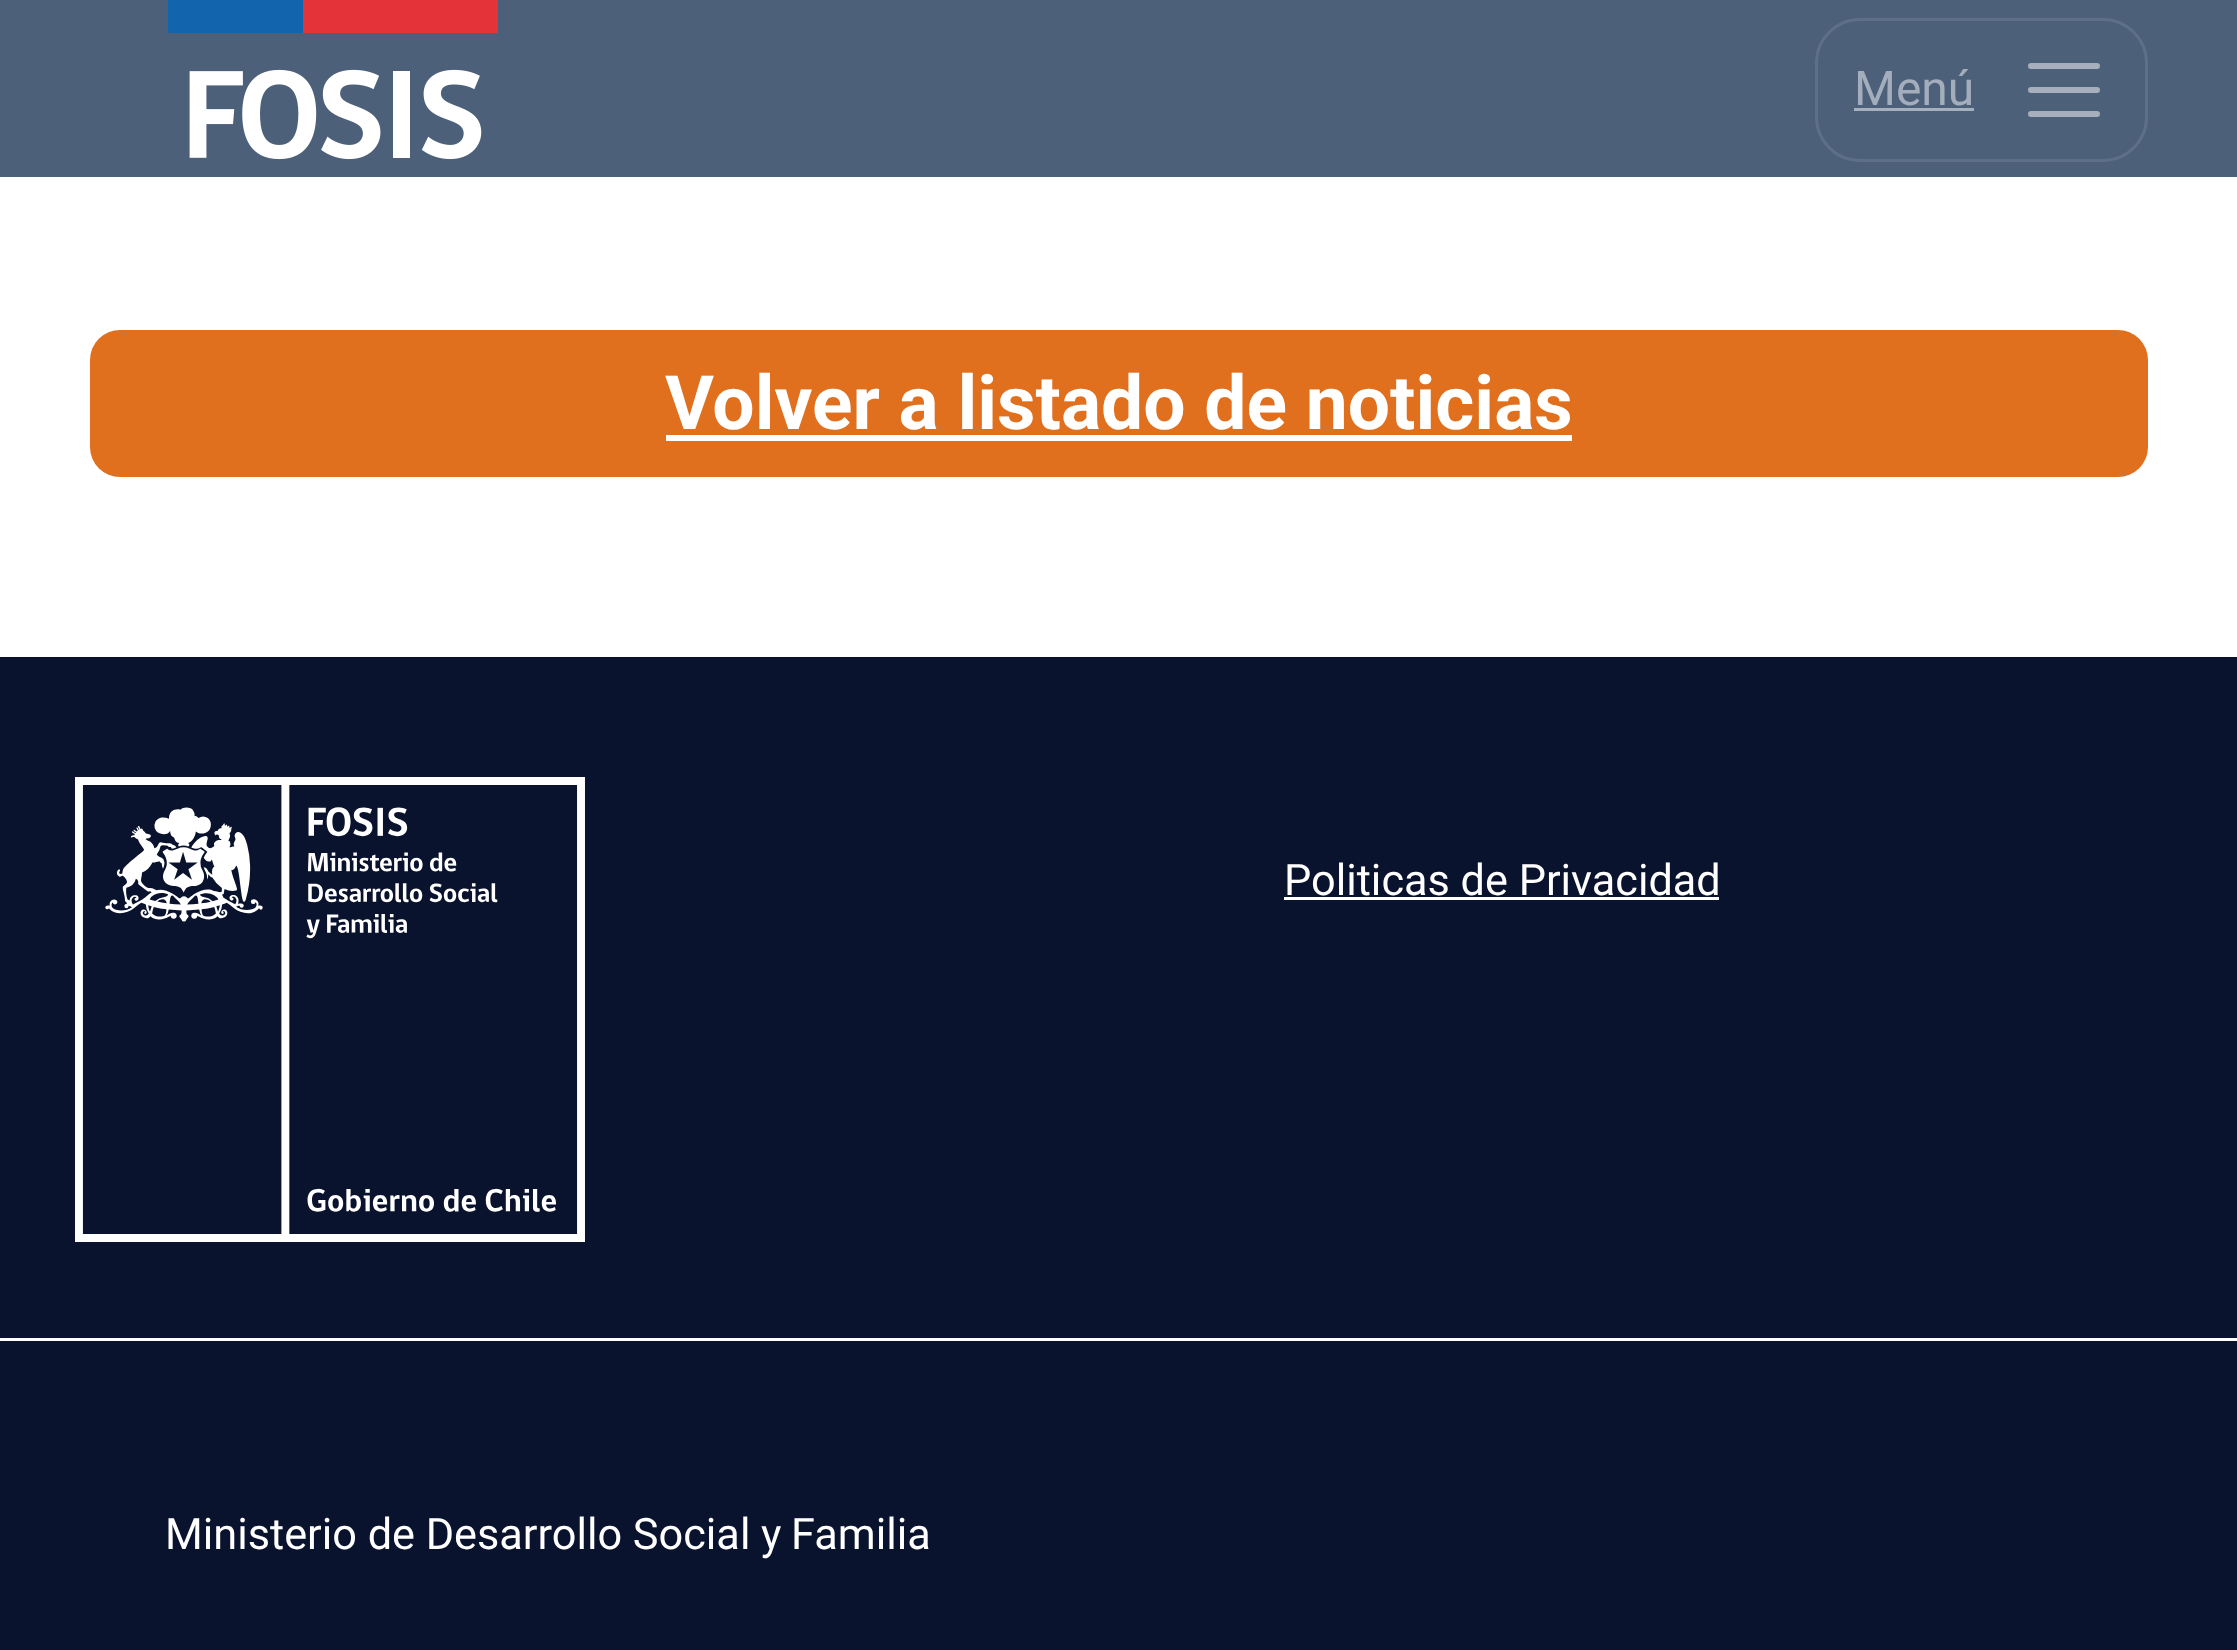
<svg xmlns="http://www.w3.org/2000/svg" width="2237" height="1650">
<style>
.a{font:48px Roboto;fill:#a3adbb}
.b{font:bold 75px Roboto;fill:#fff}
.c{font:43.25px Roboto;fill:#fff}
</style>
<rect width="100%" height="100%" fill="#fff"/>
<path fill="#001c41b3" d="M0 0h2237v177H0z"/>
<image href="1.png" x="168" y="0" width="330" height="160"/>
<rect fill="none" stroke="#ffffff1a" stroke-width="3" x="1816.5" y="19.5" width="330" height="141" rx="43.5"/>
<path fill="#a6b0bc" d="M1854 108h120v3H1854z"/>
<path fill="none" stroke="#ffffff80" stroke-width="6" stroke-linecap="round" d="M2031 66h66m-66 24h66m-66 24h66"/>
<rect fill="#e0701e" x="90" y="330" width="2058" height="147" rx="30"/>
<path fill="#fff" d="M666 435h906v6H666z"/>
<path fill="#0a132d" d="M0 657h2237v993H0z"/>
<path fill="#fff" d="M0 1338h2237v3H0z"/>
<image href="2.png" x="75" y="777" width="510" height="465"/>
<path fill="#fff" d="M1284 897h435v3H1284z"/>
<text class="a" x="1854" y="105">Menú</text>
<text class="b" x="665" y="429">Volver a listado de noticias</text>
<text class="c" x="1284" y="895">Politicas de Privacidad</text>
<text class="c" x="165" y="1549">Ministerio de Desarrollo Social y</text>
<text class="c" x="791" y="1549">Familia</text>
</svg>
